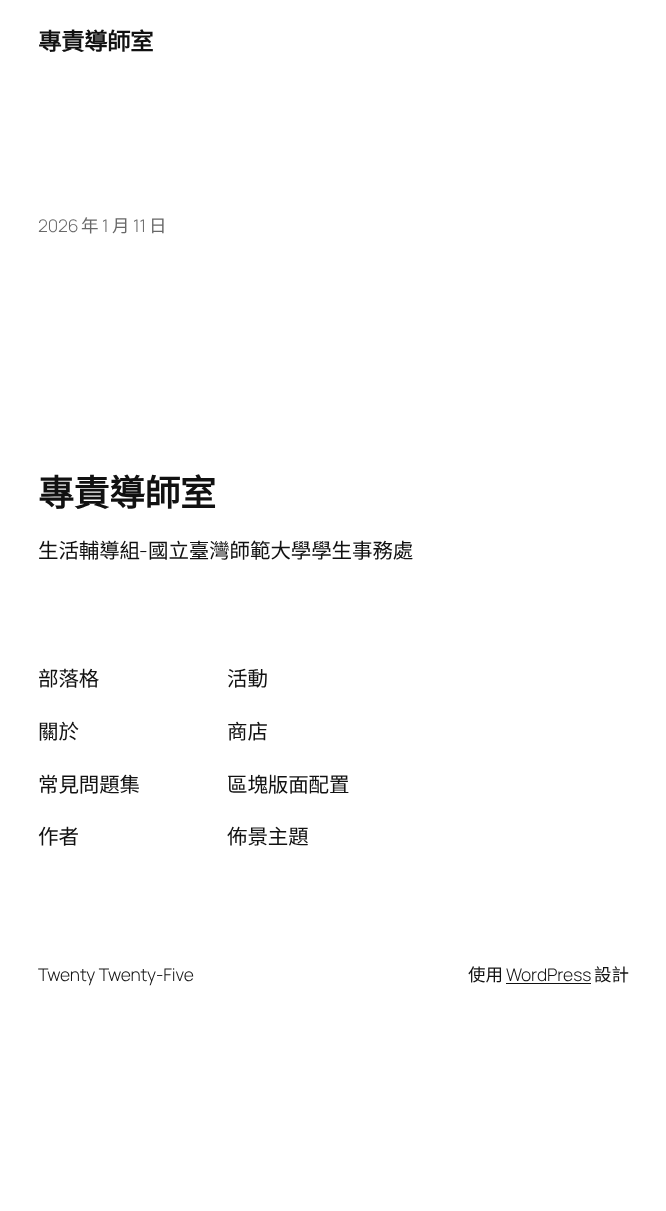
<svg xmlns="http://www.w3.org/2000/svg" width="666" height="1211">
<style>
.a{font:bold 23.5px Noto Sans CJK TC;letter-spacing:-0.5px;fill:#111}
.b{font:300 17.5px Manrope;letter-spacing:-0.1px;fill:#686868}
.c{font:17.5px Noto Sans CJK TC;letter-spacing:-0.1px;fill:#686868}
.d{font:bold 36px Noto Sans CJK TC;letter-spacing:-0.5px;fill:#111}
.e{font:20.5px Noto Sans CJK TC;letter-spacing:-0.1px;fill:#111}
.f{font:300 20.5px Manrope;letter-spacing:-0.1px;fill:#111}
.g{font:300 17.5px Manrope;letter-spacing:-0.1px;fill:#111}
.h{font:17.5px Noto Sans CJK TC;letter-spacing:-0.1px;fill:#111}
</style>
<rect width="100%" height="100%" fill="#fff"/>
<path fill="#111" d="M506 983h85v1H506z"/>
<text class="a" x="38" y="50">專責導師室</text>
<text class="b" x="38" y="232">2026</text>
<text class="c" x="81" y="232">年</text>
<text class="b" x="102" y="232">1</text>
<text class="c" x="112" y="232">月</text>
<text class="b" x="133" y="232">11</text>
<text class="c" x="149" y="232">日</text>
<text class="d" x="38" y="506">專責導師室</text>
<text class="e" x="38" y="558">生活輔導組</text>
<text class="f" x="139" y="558">-</text>
<text class="e" x="148" y="558">國立臺灣師範大學學生事務處</text>
<text class="e" x="38" y="686">部落格</text>
<text class="e" x="38" y="739">關於</text>
<text class="e" x="38" y="792">常見問題集</text>
<text class="e" x="38" y="844">作者</text>
<text class="e" x="227" y="686">活動</text>
<text class="e" x="227" y="739">商店</text>
<text class="e" x="227" y="792">區塊版面配置</text>
<text class="e" x="227" y="844">佈景主題</text>
<text class="g" x="38" y="981">Twenty Twenty-Five</text>
<text class="h" x="468" y="981">使用</text>
<text class="g" x="506" y="981">WordPress</text>
<text class="h" x="594" y="981">設計</text>
</svg>
